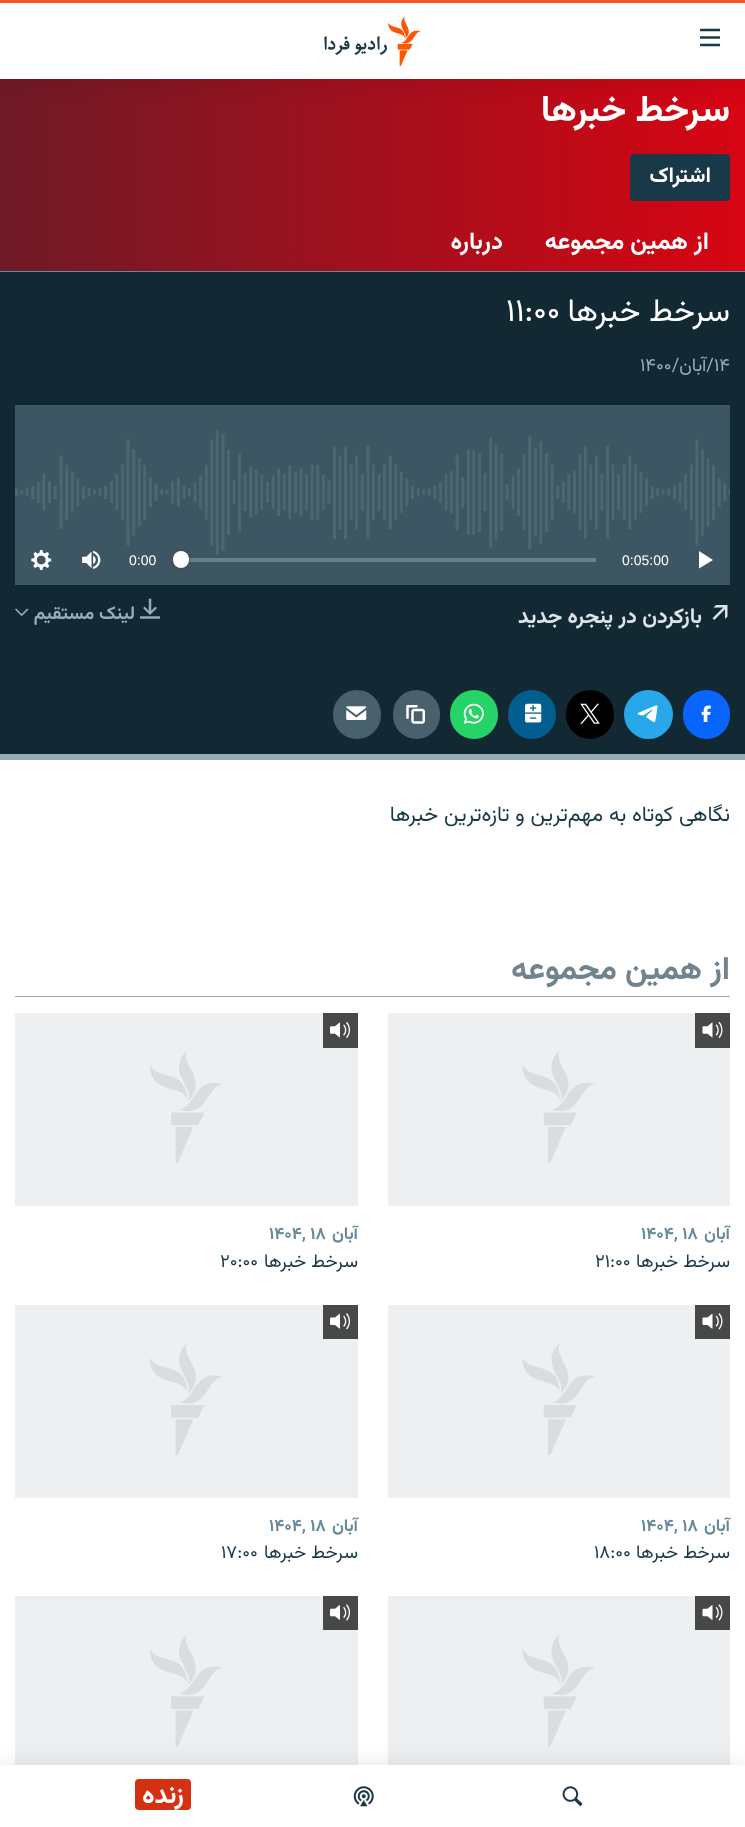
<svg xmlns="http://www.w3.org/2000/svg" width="745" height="1827">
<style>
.a{font:bold 36.75px Vazirmatn;direction:rtl;fill:#fff}
.b{font:bold 21.25px Vazirmatn;direction:rtl;fill:#fff}
.c{font:bold 24px Vazirmatn;direction:rtl;fill:#fff}
.d{font:32px Vazirmatn;direction:rtl;fill:#fff}
.e{font:32px Vazirmatn;fill:#fff}
.f{font:18.5px Vazirmatn;fill:#95adb9}
.g{font:18.5px Vazirmatn;direction:rtl;fill:#95adb9}
.h{font:14px Liberation Sans;fill:#fff}
.i{font:bold 21.25px Vazirmatn;direction:rtl;fill:#dce4e8}
.j{font:bold 18.5px Vazirmatn;direction:rtl;fill:#95adb9}
.k{font:21.25px Vazirmatn;direction:rtl;fill:#1a3948}
.l{font:bold 32px Vazirmatn;direction:rtl;fill:#71838d}
.m{font:bold 17px Vazirmatn;direction:rtl;fill:#678a9b}
.n{font:bold 17px Vazirmatn;fill:#678a9b}
.o{font:18.5px Vazirmatn;direction:rtl;fill:#1a3948}
.p{font:18.5px Vazirmatn;fill:#1a3948}
.q{font:bold 26px Vazirmatn;direction:rtl;fill:#fff}
</style>
<defs>
<linearGradient id="g1" gradientUnits="userSpaceOnUse" x1="0" y1="175" x2="745" y2="175"><stop offset="0" stop-color="#6f1a27"/><stop offset="1" stop-color="#d70513"/></linearGradient>
</defs>
<rect width="100%" height="100%" fill="#fff"/>
<path fill="url(#g1)" d="M0 79h745v192H0z"/>
<rect fill="#1a3948" x="630" y="154" width="100" height="47" rx="4"/>
<path fill="#122832" d="M0 272h745v482H0z"/>
<path fill="#678a9b" d="M0 271h745v1H0z"/>
<path fill="#95adb9" d="M0 754h745v6H0z"/>
<path fill="#3c5763" d="M15 405h715v180H15z"/>
<image href="1.png" x="15" y="430" width="715" height="125"/>
<path fill="#fff" d="M699 568.5l14-8.5l-14-9z"/>
<path fill="#6d818a" d="M180 558h416v4H180z"/>
<rect fill="#414144" filter="blur(2px)" x="173" y="551" width="16" height="17" rx="8"/>
<rect fill="#fff" x="173" y="551" width="16" height="17" rx="8"/>
<image href="2.png" x="82" y="550" width="19" height="19"/>
<image href="3.png" x="31" y="550" width="21" height="20"/>
<image href="4.png" x="712" y="605" width="16" height="15"/>
<image href="5.png" x="140" y="598" width="20" height="21"/>
<image href="6.png" x="15" y="608" width="14" height="9"/>
<rect fill="#0866ff" x="683" y="690" width="47" height="49" rx="23.5"/>
<image href="7.png" x="701" y="705" width="10" height="17"/>
<circle fill="#28a8ea" cx="648.5" cy="714.5" r="24.5"/>
<image href="8.png" x="637" y="705" width="21" height="17"/>
<rect fill="#000" x="566" y="690" width="48" height="49" rx="24"/>
<image href="9.png" x="580" y="703" width="20" height="21"/>
<rect fill="#015e8e" x="508" y="690" width="48" height="49" rx="24"/>
<image href="10.png" x="525" y="703" width="17" height="20"/>
<rect fill="#25d366" x="450" y="690" width="48" height="49" rx="24"/>
<image href="11.png" x="463" y="703" width="21" height="21"/>
<rect fill="#48616d" x="393" y="690" width="47" height="49" rx="23.5"/>
<image href="12.png" x="406" y="705" width="19" height="19"/>
<rect fill="#48616d" x="333" y="690" width="48" height="49" rx="24"/>
<image href="13.png" x="346" y="706" width="21" height="14"/>
<path fill="#95adb9" d="M15 996h715v1H15z"/>
<path fill="#edeff0" d="M388 1013h342v193H388z"/>
<image href="14.png" x="522" y="1051" width="73" height="112"/>
<path fill="#474848" d="M695 1013h35v35H695z"/>
<image href="15.png" x="702" y="1021" width="21" height="18"/>
<path fill="#edeff0" d="M15 1013h343v193H15z"/>
<image href="16.png" x="150" y="1051" width="72" height="112"/>
<path fill="#474848" d="M323 1013h35v35H323z"/>
<image href="17.png" x="330" y="1022" width="20" height="16"/>
<path fill="#edeff0" d="M388 1305h342v193H388z"/>
<image href="18.png" x="522" y="1343" width="73" height="112"/>
<path fill="#474848" d="M695 1305h35v34H695z"/>
<image href="19.png" x="702" y="1313" width="21" height="17"/>
<path fill="#edeff0" d="M15 1305h343v193H15z"/>
<image href="20.png" x="150" y="1343" width="72" height="112"/>
<path fill="#474848" d="M323 1305h35v34H323z"/>
<image href="21.png" x="330" y="1313" width="20" height="17"/>
<path fill="#edeff0" d="M388 1596h342v169H388z"/>
<image href="22.png" x="522" y="1635" width="72" height="112"/>
<path fill="#474848" d="M695 1596h35v34H695z"/>
<image href="23.png" x="702" y="1604" width="21" height="17"/>
<path fill="#edeff0" d="M15 1596h343v169H15z"/>
<image href="24.png" x="150" y="1635" width="72" height="112"/>
<path fill="#474848" d="M323 1596h35v34H323z"/>
<image href="25.png" x="330" y="1604" width="20" height="17"/>
<path fill="#0000001a" filter="blur(12.5px)" d="M0 0h745v79H0z"/>
<path fill="#fff" d="M0 3h745v76H0z"/>
<path fill="#fa5420" d="M0 0h745v3H0z"/>
<image href="26.png" x="700" y="28" width="20" height="19"/>
<image href="27.png" x="324" y="16" width="97" height="50"/>
<path fill="#0000001a" filter="blur(12.5px)" d="M0 1765h745v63H0z"/>
<path fill="#fff" d="M0 1765h745v62H0z"/>
<image href="28.png" x="562" y="1786" width="21" height="21"/>
<image href="29.png" x="353" y="1786" width="21" height="21"/>
<rect fill="#d33111" x="135" y="1779" width="56" height="31" rx="4"/>
<text class="a" x="730" y="121">سرخط خبرها</text>
<text class="b" x="711" y="182">اشتراک</text>
<text class="c" x="709" y="249">از همین مجموعه</text>
<text class="c" x="503" y="249">درباره</text>
<text class="d" x="730" y="321">سرخط خبرها</text>
<text class="e" x="506" y="321">۱۱:۰۰</text>
<text class="f" x="714" y="371">۱۴</text>
<text class="g" x="714" y="371">/آبان/</text>
<text class="f" x="640" y="371">۱۴۰۰</text>
<text class="h" x="622" y="565">0:05:00</text>
<text class="h" x="129" y="565">0:00</text>
<text class="i" x="702" y="623">بازکردن در پنجره جدید</text>
<text class="j" x="135" y="619">لینک مستقیم</text>
<text class="k" x="730" y="821">نگاهی کوتاه به مهم‌ترين و تازه‌ترين خبرها</text>
<text class="l" x="730" y="979">از همین مجموعه</text>
<text class="m" x="730" y="1239">آبان</text>
<text class="n" x="641" y="1239">۱۴۰۴, ۱۸</text>
<text class="o" x="730" y="1267">سرخط خبرها</text>
<text class="p" x="595" y="1267">۲۱:۰۰</text>
<text class="m" x="358" y="1239">آبان</text>
<text class="n" x="269" y="1239">۱۴۰۴, ۱۸</text>
<text class="o" x="358" y="1267">سرخط خبرها</text>
<text class="p" x="220" y="1267">۲۰:۰۰</text>
<text class="m" x="730" y="1531">آبان</text>
<text class="n" x="641" y="1531">۱۴۰۴, ۱۸</text>
<text class="o" x="730" y="1558">سرخط خبرها</text>
<text class="p" x="594" y="1558">۱۸:۰۰</text>
<text class="m" x="358" y="1531">آبان</text>
<text class="n" x="269" y="1531">۱۴۰۴, ۱۸</text>
<text class="o" x="358" y="1558">سرخط خبرها</text>
<text class="p" x="221" y="1558">۱۷:۰۰</text>
<text class="q" x="184" y="1803">زنده</text>
</svg>
